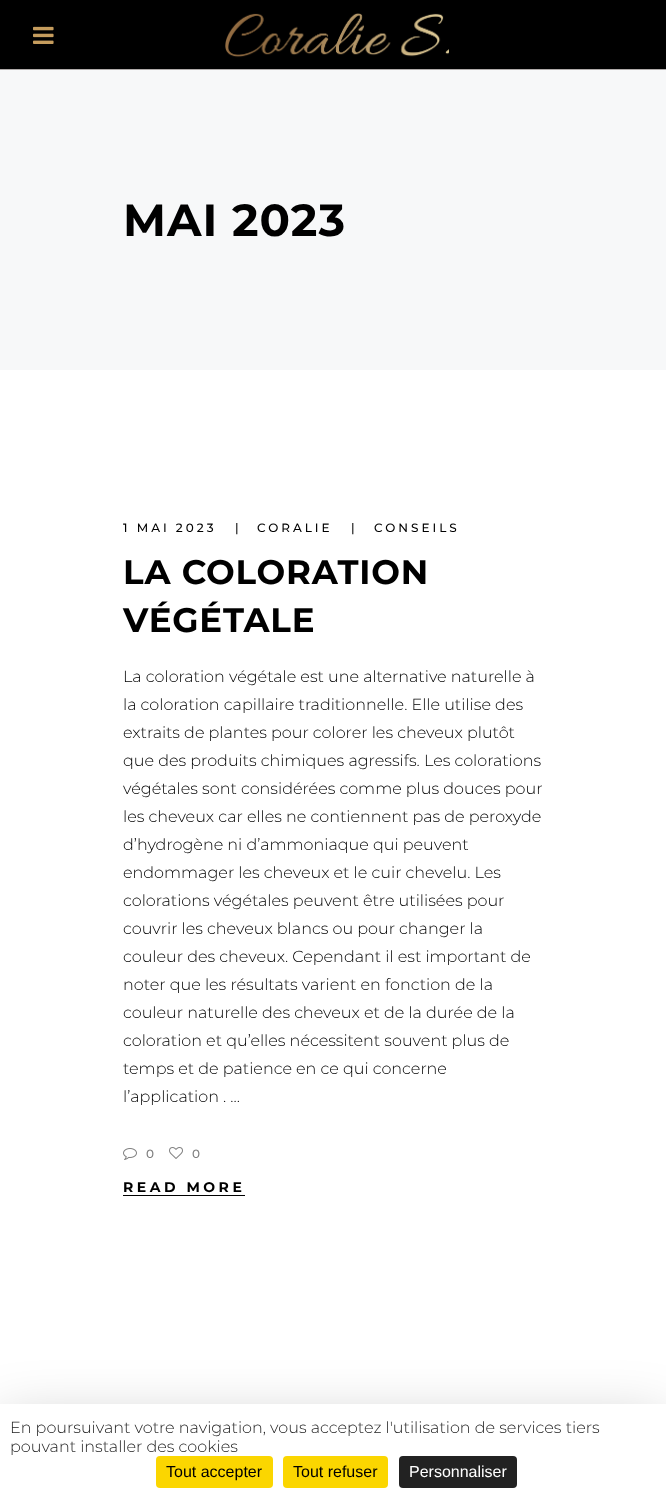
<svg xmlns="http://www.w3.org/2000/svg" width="666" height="1498">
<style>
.a{font:bold 45px Montserrat;letter-spacing:1px;fill:#000}
.b{font:500 12px Montserrat;letter-spacing:3px;fill:#000}
.c{font:bold 34px Montserrat;letter-spacing:0.8px;fill:#000}
.d{font:300 16px Montserrat;fill:#000}
.e{font:500 12px Montserrat;fill:#808080}
.f{font:bold 14px Montserrat;letter-spacing:3.5px;fill:#000}
.g{font:300 16px Montserrat;fill:#222}
.h{font:16px Liberation Sans;fill:#000}
.i{font:16px Liberation Sans;fill:#fff}
</style>
<rect width="100%" height="100%" fill="#fff"/>
<path fill="#000" d="M0 0h666v69H0z"/>
<path fill="#afaaa9" d="M0 69h666v1H0z"/>
<image href="1.png" x="33" y="26" width="21" height="18"/>
<image href="2.png" x="225" y="13" width="224" height="45"/>
<path fill="#f7f8f9" d="M0 70h666v300H0z"/>
<image href="3.png" x="123" y="1148" width="14" height="12"/>
<image href="4.png" x="169" y="1147" width="14" height="12"/>
<path fill="#000" d="M123 1195h122v1H123z"/>
<path fill="#00000040" filter="blur(30px)" d="M0 1424h666v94H0z"/>
<path fill="#fff" d="M0 1404h666v94H0z"/>
<rect fill="#fbd600" x="156" y="1456" width="117" height="32" rx="4"/>
<rect fill="#fbd600" x="283" y="1456" width="105" height="32" rx="4"/>
<rect fill="#222" x="399" y="1456" width="118" height="32" rx="4"/>
<text class="a" x="123" y="236">MAI 2023</text>
<text class="b" x="123" y="532">1 MAI 2023</text>
<text class="b" x="235" y="532">|</text>
<text class="b" x="257" y="532">CORALIE</text>
<text class="b" x="351" y="532">|</text>
<text class="b" x="374" y="532">CONSEILS</text>
<text class="c" x="123" y="584">LA COLORATION</text>
<text class="c" x="123" y="632">VÉGÉTALE</text>
<text class="d" x="123" y="682">La coloration végétale est une alternative naturelle à</text>
<text class="d" x="123" y="710">la coloration capillaire traditionnelle. Elle utilise des</text>
<text class="d" x="123" y="738">extraits de plantes pour colorer les cheveux plutôt</text>
<text class="d" x="123" y="766">que des produits chimiques agressifs. Les colorations</text>
<text class="d" x="123" y="794">végétales sont considérées comme plus douces pour</text>
<text class="d" x="123" y="822">les cheveux car elles ne contiennent pas de peroxyde</text>
<text class="d" x="123" y="850">d’hydrogène ni d’ammoniaque qui peuvent</text>
<text class="d" x="123" y="878">endommager les cheveux et le cuir chevelu. Les</text>
<text class="d" x="123" y="906">colorations végétales peuvent être utilisées pour</text>
<text class="d" x="123" y="934">couvrir les cheveux blancs ou pour changer la</text>
<text class="d" x="123" y="962">couleur des cheveux. Cependant il est important de</text>
<text class="d" x="123" y="990">noter que les résultats varient en fonction de la</text>
<text class="d" x="123" y="1018">couleur naturelle des cheveux et de la durée de la</text>
<text class="d" x="123" y="1046">coloration et qu’elles nécessitent souvent plus de</text>
<text class="d" x="123" y="1074">temps et de patience en ce qui concerne</text>
<text class="d" x="123" y="1102">l’application . ...</text>
<text class="e" x="146" y="1158">0</text>
<text class="e" x="192" y="1158">0</text>
<text class="f" x="123" y="1192">READ MORE</text>
<text class="g" x="10" y="1433">En poursuivant votre navigation, vous acceptez l'utilisation de services tiers</text>
<text class="g" x="10" y="1452">pouvant installer des cookies</text>
<text class="h" x="166" y="1477">Tout accepter</text>
<text class="h" x="293" y="1477">Tout refuser</text>
<text class="i" x="409" y="1477">Personnaliser</text>
</svg>
